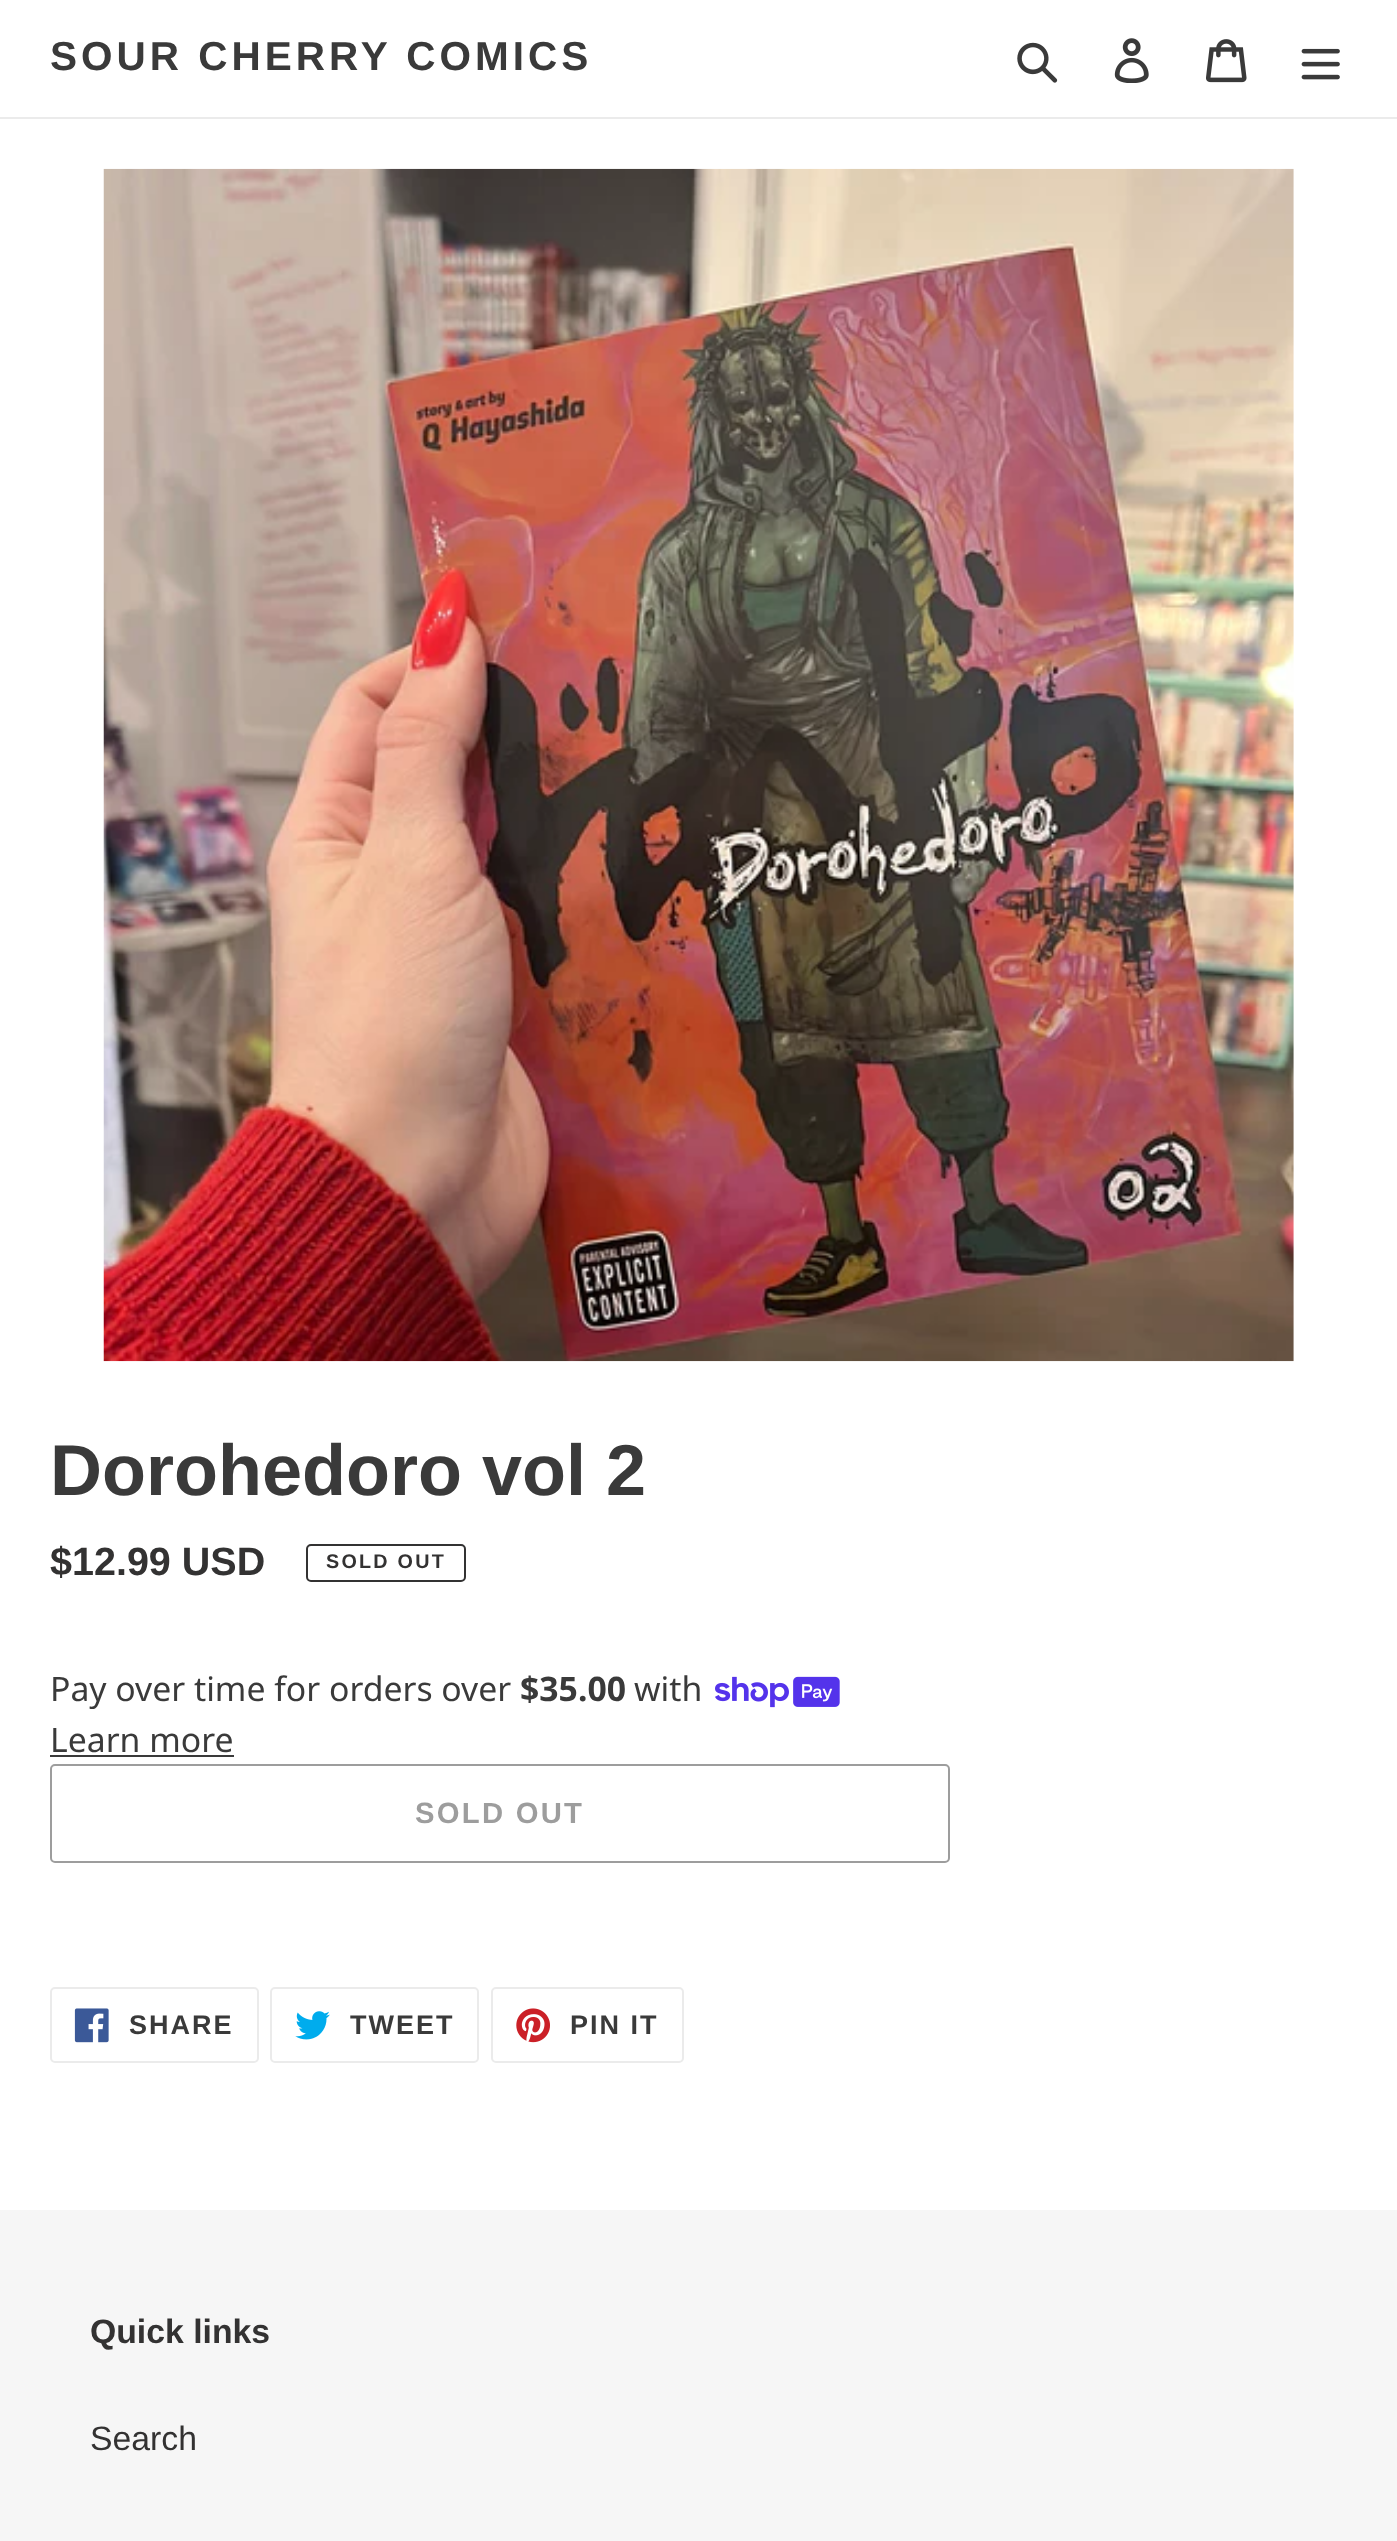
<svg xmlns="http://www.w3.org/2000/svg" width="1397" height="2541">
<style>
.a{font:bold 40.5px Liberation Sans;letter-spacing:4px;fill:#3a3a3a}
.b{font:bold 72px Liberation Sans;fill:#3a3a3a}
.c{font:bold 39.5px Liberation Sans;fill:#333232}
.d{font:bold 19.75px Liberation Sans;letter-spacing:2.25px;fill:#333232}
.e{font:33.75px Noto Sans;fill:#3a3a3a}
.f{font:bold 33.75px Noto Sans;fill:#3a3a3a}
.g{font:bold 29.25px Liberation Sans;letter-spacing:2.25px;fill:#9d9d9d}
.h{font:bold 27px Liberation Sans;letter-spacing:2px;fill:#3a3a3a}
.i{font:bold 33.75px Liberation Sans;fill:#333232}
.j{font:33.75px Liberation Sans;fill:#333232}
</style>
<rect width="100%" height="100%" fill="#fff"/>
<path fill="#ebebeb" d="M0 117h1397v2H0z"/>
<image href="1.png" x="1017" y="42" width="41" height="41"/>
<image href="2.png" x="1114" y="38" width="35" height="45"/>
<image href="3.png" x="1206" y="39" width="41" height="44"/>
<image href="4.png" x="1301" y="48" width="39" height="32"/>
<image href="5.png" x="103" y="168" width="1191" height="1194"/>
<rect fill="none" stroke="#333232" stroke-width="2" x="307" y="1545" width="158" height="36" rx="4"/>
<image href="6.png" x="715" y="1676" width="125" height="32"/>
<path fill="#3a3a3a" d="M50 1755h184v2H50z"/>
<rect fill="none" stroke="#9d9d9d" stroke-width="2" x="51" y="1765" width="898" height="97" rx="4"/>
<rect fill="none" stroke="#ebebeb" stroke-width="2" x="51" y="1988" width="207" height="74" rx="4"/>
<image href="7.png" x="74" y="2008" width="35" height="35"/>
<rect fill="none" stroke="#ebebeb" stroke-width="2" x="271" y="1988" width="207" height="74" rx="4"/>
<image href="8.png" x="295" y="2011" width="35" height="29"/>
<rect fill="none" stroke="#ebebeb" stroke-width="2" x="492" y="1988" width="191" height="74" rx="4"/>
<image href="9.png" x="516" y="2008" width="34" height="35"/>
<path fill="#f6f6f6" d="M0 2210h1397v331H0z"/>
<text class="a" x="50" y="70">SOUR CHERRY COMICS</text>
<text class="b" x="50" y="1495">Dorohedoro vol 2</text>
<text class="c" x="50" y="1575">$12.99 USD</text>
<text class="d" x="326" y="1568">SOLD OUT</text>
<text class="e" x="50" y="1701">Pay over time for orders over</text>
<text class="f" x="520" y="1701">$35.00</text>
<text class="e" x="634" y="1701">with</text>
<text class="e" x="50" y="1752">Learn more</text>
<text class="g" x="415" y="1823">SOLD OUT</text>
<text class="h" x="129" y="2034">SHARE</text>
<text class="h" x="350" y="2034">TWEET</text>
<text class="h" x="570" y="2034">PIN IT</text>
<text class="i" x="90" y="2343">Quick links</text>
<text class="j" x="90" y="2450">Search</text>
</svg>
